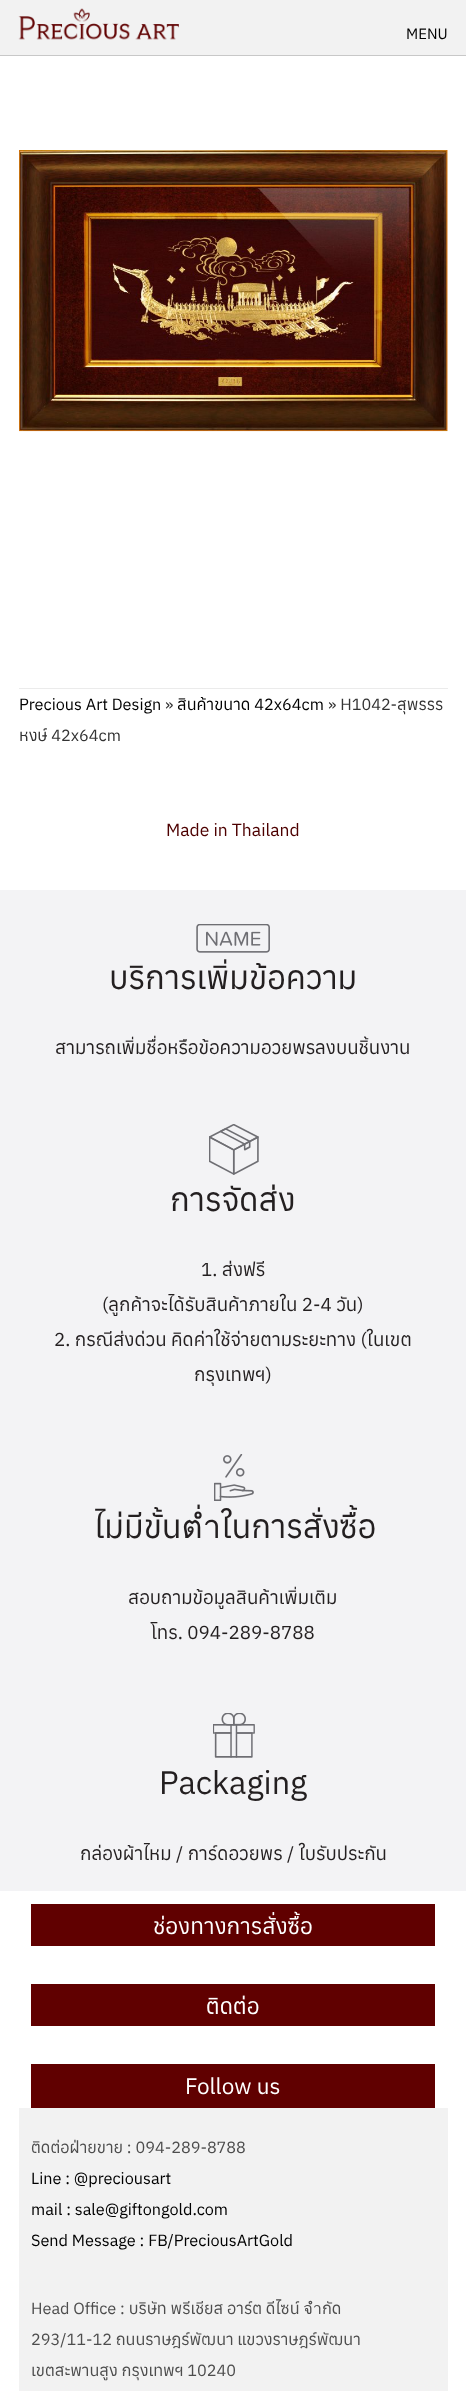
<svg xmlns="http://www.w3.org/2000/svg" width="466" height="2391">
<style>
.a{font:15px anuphan;fill:#000}
.b{font:16.25px anuphan;fill:#000}
.c{font:16.25px anuphan;fill:#333}
.d{font:17.5px anuphan;fill:#4d0000}
.e{font:32.5px anuphan;fill:#231f20}
.f{font:18.75px anuphan;fill:#231f20}
.g{font:22.5px anuphan;fill:#fff}
.h{font:16.25px anuphan;fill:#4d4d4d}
</style>
<rect width="100%" height="100%" fill="#fff"/>
<path fill="#f2f2f2" d="M0 0h466v55H0z"/>
<path fill="#c8c8c8" d="M0 55h466v1H0z"/>
<image href="1.png" x="18" y="8" width="161" height="32"/>
<image href="2.png" x="19" y="150" width="429" height="282"/>
<path fill="#ebebeb" d="M19 688h429v1H19z"/>
<path fill="#f3f3f5" d="M0 890h466v1001H0z"/>
<image href="3.png" x="196" y="924" width="74" height="29"/>
<image href="4.png" x="209" y="1124" width="50" height="51"/>
<image href="5.png" x="214" y="1454" width="40" height="47"/>
<image href="6.png" x="213" y="1713" width="42" height="45"/>
<path fill="#600000" d="M31 1904h404v42H31z"/>
<path fill="#600000" d="M31 1984h404v42H31z"/>
<path fill="#600000" d="M31 2064h404v44H31z"/>
<path fill="#f2f2f2" d="M19 2108h429v283H19z"/>
<text class="a" x="406" y="39">MENU</text>
<text class="b" x="19" y="710">Precious Art Design</text>
<text class="c" x="328" y="710">» H1042-สุพรรร</text>
<text class="c" x="165" y="710">»</text>
<text class="b" x="177" y="710">สินค้าขนาด 42x64cm</text>
<text class="c" x="19" y="741">หงษ์ 42x64cm</text>
<text class="d" x="166" y="836">Made in Thailand</text>
<text class="e" x="109" y="989">บริการเพิ่มข้อความ</text>
<text class="f" x="55" y="1054">สามารถเพิ่มชื่อหรือข้อความอวยพรลงบนชิ้นงาน</text>
<text class="e" x="170" y="1211">การจัดส่ง</text>
<text class="f" x="201" y="1276">1. ส่งฟรี</text>
<text class="f" x="102" y="1311">(ลูกค้าจะได้รับสินค้าภายใน 2-4 วัน)</text>
<text class="f" x="54" y="1346">2. กรณีส่งด่วน คิดค่าใช้จ่ายตามระยะทาง (ในเขต</text>
<text class="f" x="194" y="1381">กรุงเทพฯ)</text>
<text class="e" x="94" y="1538">ไม่มีขั้นต่ำในการสั่งซื้อ</text>
<text class="f" x="128" y="1604">สอบถามข้อมูลสินค้าเพิ่มเติม</text>
<text class="f" x="151" y="1639">โทร. 094-289-8788</text>
<text class="e" x="159" y="1794">Packaging</text>
<text class="f" x="80" y="1860">กล่องผ้าไหม / การ์ดอวยพร / ใบรับประกัน</text>
<text class="g" x="153" y="1934">ช่องทางการสั่งซื้อ</text>
<text class="g" x="206" y="2014">ติดต่อ</text>
<text class="g" x="185" y="2094">Follow us</text>
<text class="h" x="31" y="2153">ติดต่อฝ่ายขาย : 094-289-8788</text>
<text class="b" x="31" y="2184">Line : @preciousart</text>
<text class="b" x="31" y="2215">mail : sale@giftongold.com</text>
<text class="b" x="31" y="2246">Send Message : FB/PreciousArtGold</text>
<text class="h" x="31" y="2314">Head Office : บริษัท พรีเชียส อาร์ต ดีไซน์ จำกัด</text>
<text class="h" x="31" y="2345">293/11-12 ถนนราษฎร์พัฒนา แขวงราษฎร์พัฒนา</text>
<text class="h" x="31" y="2376">เขตสะพานสูง กรุงเทพฯ 10240</text>
</svg>
